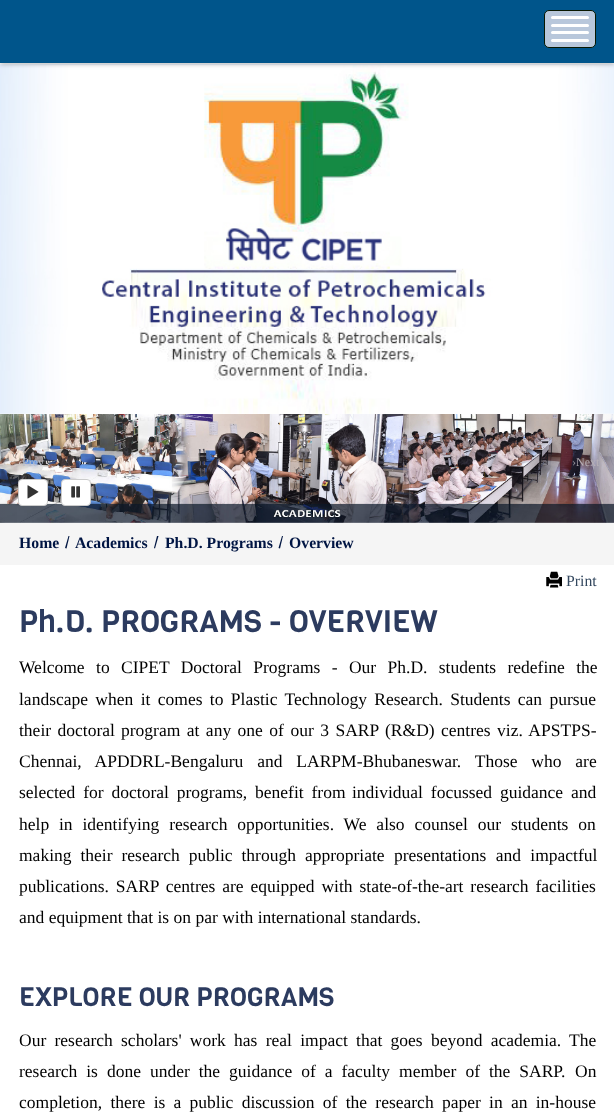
<svg xmlns="http://www.w3.org/2000/svg" width="614" height="1114">
<style>
.a{font:12px Liberation Serif;fill:#d3c9c6}
.b{font:12px Liberation Serif;fill:#bac0cd}
.c{font:12px Liberation Serif;fill:#918e97}
.d{font:12px Liberation Serif;fill:#b7b1b7}
.e{font:bold 15.75px Liberation Serif;fill:#001543}
.f{font:15.75px Liberation Serif;fill:#34485f}
.g{font:30.6px Viga;fill:#2c3b5f}
.h{font:17.5px Liberation Serif;fill:#000}
.i{font:26.25px Viga;fill:#2c3b5f}
</style>
<defs>
<linearGradient id="g1" gradientUnits="userSpaceOnUse" x1="0" y1="468" x2="61" y2="468"><stop offset="0" stop-color="#000" stop-opacity="0.03"/><stop offset="1" stop-color="#000" stop-opacity="0"/></linearGradient>
<linearGradient id="g2" gradientUnits="userSpaceOnUse" x1="554" y1="468" x2="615" y2="468"><stop offset="0" stop-color="#000" stop-opacity="0"/><stop offset="1" stop-color="#000" stop-opacity="0.03"/></linearGradient>
</defs>
<rect width="100%" height="100%" fill="#fff"/>
<path fill="#ecf4fe" d="M0 64h614v1H0z"/>
<image href="1.png" x="0" y="65" width="614" height="349"/>
<path fill="#0000004d" filter="blur(2.5px)" d="M0 1h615v63H0z"/>
<path fill="#00558b" d="M0 0h614v63H0z"/>
<rect fill="#b8c7db" stroke="#081700" x="544.5" y="10.5" width="51" height="37" rx="4.5"/>
<rect fill="#fff" x="551" y="16" width="38" height="3" rx="1.5"/>
<rect fill="#fff" x="551" y="24" width="38" height="3" rx="1.5"/>
<rect fill="#fff" x="551" y="31" width="38" height="3" rx="1.5"/>
<rect fill="#fff" x="551" y="39" width="38" height="3" rx="1.5"/>
<image href="2.png" x="0" y="414" width="614" height="109"/>
<path fill="url(#g1)" d="M0 414h17v109H0z"/>
<path fill="url(#g2)" d="M598 414h16v109H598z"/>
<rect fill="#fff" stroke="#ccc" x="18.5" y="479.5" width="29" height="26" rx="3.5"/>
<image href="3.png" x="27" y="485" width="12" height="14"/>
<rect fill="#fff" stroke="#ccc" x="61.5" y="479.5" width="29" height="26" rx="3.5"/>
<image href="4.png" x="71" y="486" width="9" height="12"/>
<path fill="#f5f5f5" d="M0 523h614v42H0z"/>
<path fill="#011642" d="M68.5 536h1l-3 12.5l-1.5-.5z"/>
<path fill="#011642" d="M157 536h1.5l-3.5 12.5l-1-.5z"/>
<path fill="#011642" d="M282 536h1l-3 12.5l-1.5-.5z"/>
<image href="5.png" x="546" y="571" width="16" height="17"/>
<text class="a" x="18" y="466">‹</text>
<text class="b" x="22" y="466">Prev</text>
<text class="c" x="572" y="466">›</text>
<text class="d" x="576" y="466">Next</text>
<text class="e" x="19" y="548">Home</text>
<text class="e" x="75" y="548">Academics</text>
<text class="e" x="165" y="548">Ph.D. Programs</text>
<text class="e" x="289" y="548">Overview</text>
<text class="f" x="566" y="586">Print</text>
<text class="g" x="19" y="632">Ph.D. PROGRAMS - OVERVIEW</text>
<text class="h" x="19" y="673" word-spacing="7">Welcome to CIPET Doctoral Programs - Our Ph.D. students redefine the</text>
<text class="h" x="19" y="705" word-spacing="3">landscape when it comes to Plastic Technology Research. Students can pursue</text>
<text class="h" x="19" y="736" word-spacing="2.1">their doctoral</text>
<text class="h" x="121" y="736" word-spacing="2.1">program at any one of our 3 SARP (R&amp;D) centres viz. APSTPS-</text>
<text class="h" x="19" y="767" word-spacing="9.5">Chennai, APDDRL-Bengaluru and LARPM-Bhubaneswar. Those who are</text>
<text class="h" x="19" y="798" word-spacing="3.5">selected for doctoral programs, benefit from</text>
<text class="h" x="352" y="798" word-spacing="3.5">individual focussed guidance and</text>
<text class="h" x="19" y="830" word-spacing="5.5">help in identifying research opportunities. We also counsel our students on</text>
<text class="h" x="19" y="861" word-spacing="4.6">making their research public through appropriate</text>
<text class="h" x="394" y="861" word-spacing="5">presentations and impactful</text>
<text class="h" x="19" y="892" word-spacing="2.5">publications. SARP centres are equipped with state-of-the-art research facilities</text>
<text class="h" x="19" y="923">and equipment that is on par with international standards.</text>
<text class="i" x="19" y="1006">EXPLORE OUR PROGRAMS</text>
<text class="h" x="19" y="1046" word-spacing="3.9">Our research scholars' work has real impact that goes beyond academia. The</text>
<text class="h" x="19" y="1077" word-spacing="4.6">research is done under the guidance of a faculty member of the SARP.</text>
<text class="h" x="575" y="1077">On</text>
<text class="h" x="19" y="1108" word-spacing="3.9">completion, there is a public discussion of the research paper in an in-house</text>
</svg>
